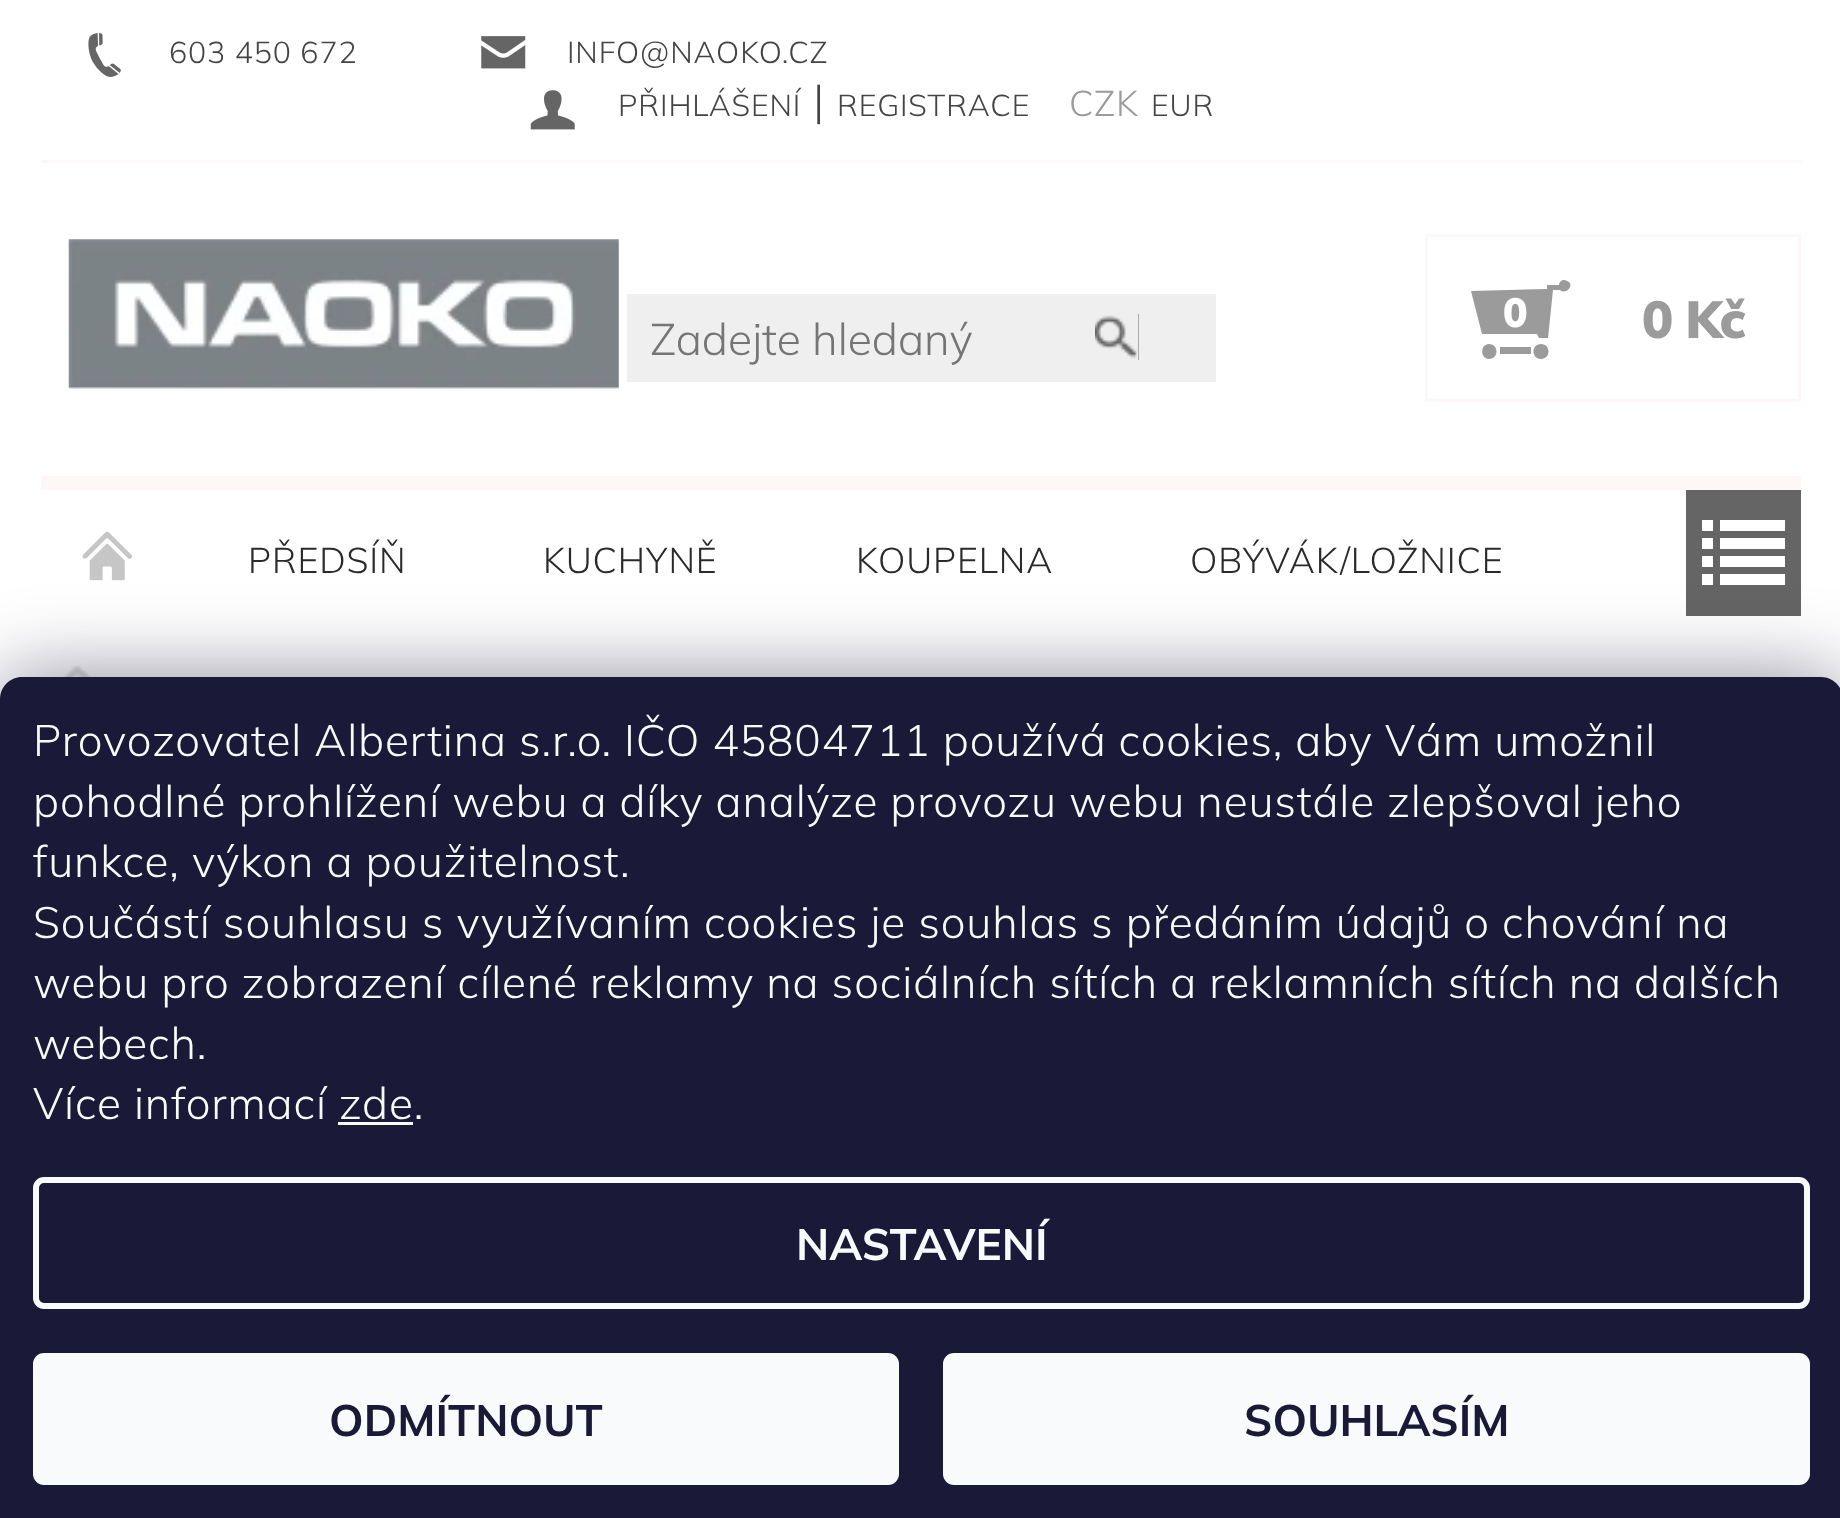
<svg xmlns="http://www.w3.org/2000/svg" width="1840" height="1518">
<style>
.a{font:300 30.25px Mulish;letter-spacing:0.88px;fill:#444}
.b{font:300 44px Mulish;letter-spacing:0.88px;fill:#444}
.c{font:300 35.75px Mulish;letter-spacing:0.88px;fill:#9b9b9b}
.d{font:300 44.25px Mulish;fill:#757575}
.e{font:900 41px Mulish;letter-spacing:-1.5px;fill:#fff}
.f{font:900 52px Mulish;letter-spacing:-1.5px;fill:#9b9b9b}
.g{font:300 35.75px Mulish;letter-spacing:0.88px;fill:#2a2a2a}
.h{font:300 44px Mulish;letter-spacing:0.88px;fill:#f8fafb}
.i{font:bold 44px Mulish;fill:#f8fafb}
.j{font:bold 44px Mulish;fill:#1a1937}
</style>
<rect width="100%" height="100%" fill="#fff"/>
<path fill="#fdf7f7" d="M41 160h1760v3H41z"/>
<image href="1.png" x="88" y="33" width="33" height="44"/>
<image href="2.png" x="481" y="36" width="45" height="33"/>
<image href="3.png" x="530" y="90" width="45" height="40"/>
<image href="4.png" x="68" y="239" width="551" height="150"/>
<path fill="#efefef" d="M627 294h589v88H627z"/>
<path fill="#656565" d="M1095 314h44v46H1095z"/>
<image href="5.png" x="1095" y="314" width="44" height="46"/>
<path fill="none" stroke="#fdf7f7" stroke-width="3" d="M1426.5 235.5h373v165H1426.5z"/>
<path fill="#9b9b9b" d="M1500 354h31v-7h-31zm-11-10c-9 0-9 15 0 15c10 0 10-15 0-15zm52 0c-10 0-10 15 0 15c10 0 10-15 0-15zm23-64c-2 0-5 2-5 5h-12v4l-76 2l11 43h55l2 4h9l5-48h7c5 5 14-3 9-8c-2-1-3-2-5-2z"/>
<path fill="#fdf7f7" d="M41 476h1760v14H41z"/>
<image href="6.png" x="82" y="531" width="50" height="50"/>
<path fill="#656565" d="M1686 490h115v126H1686z"/>
<path fill="#fff" d="M1702 520h11v11h-11zm18 0h65v11h-65zm-18 18h11v11h-11zm18 0h65v11h-65zm-18 18h11v11h-11zm18 0h65v11h-65zm-18 18h11v11h-11zm18 0h65v11h-65z"/>
<image href="7.png" x="62" y="665" width="31" height="12"/>
<rect fill="#1b193980" filter="blur(41px)" y="677" width="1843" height="841" rx="22"/>
<path fill="#1a1937" d="M22 677h1799c12 0 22 10 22 22v819h-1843v-819c0-12 10-22 22-22z"/>
<path fill="#f8fafb" d="M338 1122h75v3H338z"/>
<rect fill="none" stroke="#f8fafb" stroke-width="6" x="36" y="1180" width="1771" height="126" rx="8"/>
<rect fill="#f8fafb" x="33" y="1353" width="866" height="132" rx="11"/>
<rect fill="#f8fafb" x="943" y="1353" width="867" height="132" rx="11"/>
<text class="a" x="169" y="63">603 450 672</text>
<text class="a" x="567" y="63">INFO@NAOKO.CZ</text>
<text class="a" x="618" y="116">PŘIHLÁŠENÍ</text>
<text class="b" x="813" y="116">|</text>
<text class="a" x="837" y="116">REGISTRACE</text>
<text class="c" x="1069" y="116">CZK</text>
<text class="a" x="1151" y="116">EUR</text>
<text class="d" x="650" y="355">Zadejte hledaný</text>
<text class="e" x="1503" y="327">0</text>
<text class="f" x="1642" y="338">0 Kč</text>
<text class="g" x="248" y="573">PŘEDSÍŇ</text>
<text class="g" x="543" y="573">KUCHYNĚ</text>
<text class="g" x="856" y="573">KOUPELNA</text>
<text class="g" x="1190" y="573">OBÝVÁK/LOŽNICE</text>
<text class="h" x="33" y="756">Provozovatel Albertina s.r.o. IČO 45804711 používá cookies, aby Vám umožnil</text>
<text class="h" x="33" y="817">pohodlné prohlížení webu a díky analýze provozu webu neustále zlepšoval jeho</text>
<text class="h" x="33" y="877">funkce, výkon a použitelnost.</text>
<text class="h" x="33" y="938">Součástí souhlasu s využívaním cookies je souhlas s předáním údajů o chování na</text>
<text class="h" x="33" y="998">webu pro zobrazení cílené reklamy na sociálních sítích a reklamních sítích na dalších</text>
<text class="h" x="33" y="1059">webech.</text>
<text class="h" x="33" y="1119">Více informací zde.</text>
<text class="i" x="796" y="1260">NASTAVENÍ</text>
<text class="j" x="329" y="1436">ODMÍTNOUT</text>
<text class="j" x="1244" y="1436">SOUHLASÍM</text>
</svg>
